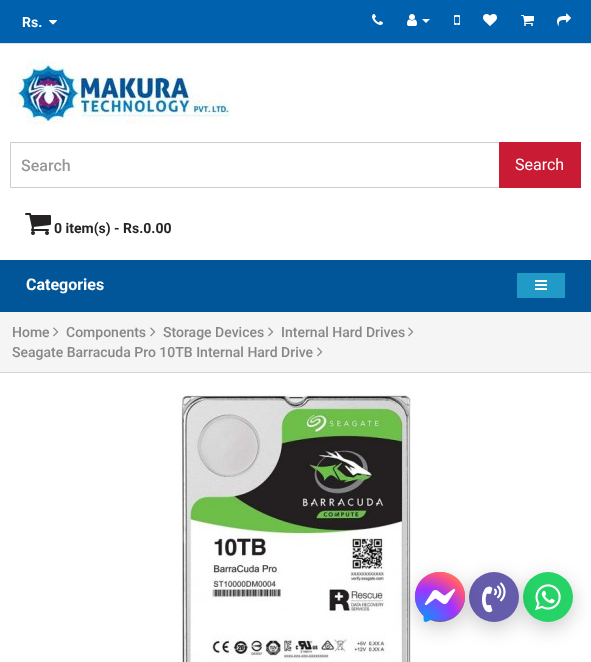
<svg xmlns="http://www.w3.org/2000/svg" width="591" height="662">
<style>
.a{font:bold 14px Roboto;fill:#fff}
.b{font:500 16px Roboto;fill:#999}
.c{font:16px Roboto;fill:#fff}
.d{font:bold 14px Roboto;fill:#262324}
.e{font:bold 16px Roboto;fill:#fff}
.f{font:500 14px Roboto;fill:#878787}
</style>
<rect width="100%" height="100%" fill="#fff"/>
<path fill="#0061ae" d="M0 0h591v43H0z"/>
<path fill="#e2e2e2" d="M0 43h591v1H0z"/>
<image href="1.png" x="49" y="20" width="8" height="5"/>
<image href="2.png" x="372" y="14" width="11" height="11"/>
<image href="3.png" x="407" y="14" width="10" height="12"/>
<path fill="#fff" d="M422 19h8l-4 4z"/>
<image href="4.png" x="454" y="15" width="6" height="10"/>
<image href="5.png" x="483" y="14" width="14" height="12"/>
<image href="6.png" x="521" y="15" width="13" height="11"/>
<image href="7.png" x="557" y="13" width="14" height="13"/>
<image href="8.png" x="10" y="60" width="220" height="65"/>
<path fill="none" stroke="#ccc" d="M10.5 142.5h489v45H10.5z"/>
<path fill="#ca1b34" d="M499 142h82v46H499z"/>
<image href="9.png" x="25" y="213" width="26" height="22"/>
<path fill="#015699" d="M0 260h591v52H0z"/>
<path fill="#229ac8" d="M517 273h48v25H517z"/>
<image href="10.png" x="535" y="280" width="12" height="10"/>
<path fill="#00000029" filter="blur(0.5px)" d="M0 313h591v60H0z"/>
<path fill="#f5f5f5" d="M0 312h591v60H0z"/>
<image href="11.png" x="53" y="327" width="6" height="10"/>
<image href="11.png" x="150" y="327" width="6" height="10"/>
<image href="11.png" x="268" y="327" width="6" height="10"/>
<image href="11.png" x="408" y="327" width="6" height="10"/>
<image href="11.png" x="317" y="347" width="6" height="10"/>
<image href="12.png" x="178" y="394" width="233" height="268"/>
<rect fill="#00000033" filter="blur(10px)" x="523" y="578" width="50" height="50" rx="25"/>
<circle fill="#25d366" cx="548" cy="597" r="25"/>
<image href="15.png" x="535" y="584" width="26" height="27"/>
<rect fill="#00000033" filter="blur(10px)" x="469" y="578" width="50" height="50" rx="25"/>
<circle fill="#665cac" cx="494" cy="597" r="25"/>
<image href="14.png" x="482" y="582" width="24" height="31"/>
<rect fill="#00000033" filter="blur(10px)" x="415" y="578" width="50" height="50" rx="25"/>
<circle fill="#665cac" cx="440" cy="597" r="25"/>
<image href="13.png" x="415" y="572" width="50" height="50"/>
<text class="a" x="22" y="27">Rs.</text>
<text class="b" x="21" y="171">Search</text>
<text class="c" x="515" y="170">Search</text>
<text class="d" x="54" y="233">0 item(s) - Rs.0.00</text>
<text class="e" x="26" y="290">Categories</text>
<text class="f" x="12" y="337">Home</text>
<text class="f" x="66" y="337">Components</text>
<text class="f" x="163" y="337">Storage Devices</text>
<text class="f" x="281" y="337">Internal Hard Drives</text>
<text class="f" x="12" y="357">Seagate Barracuda Pro 10TB Internal Hard Drive</text>
</svg>
